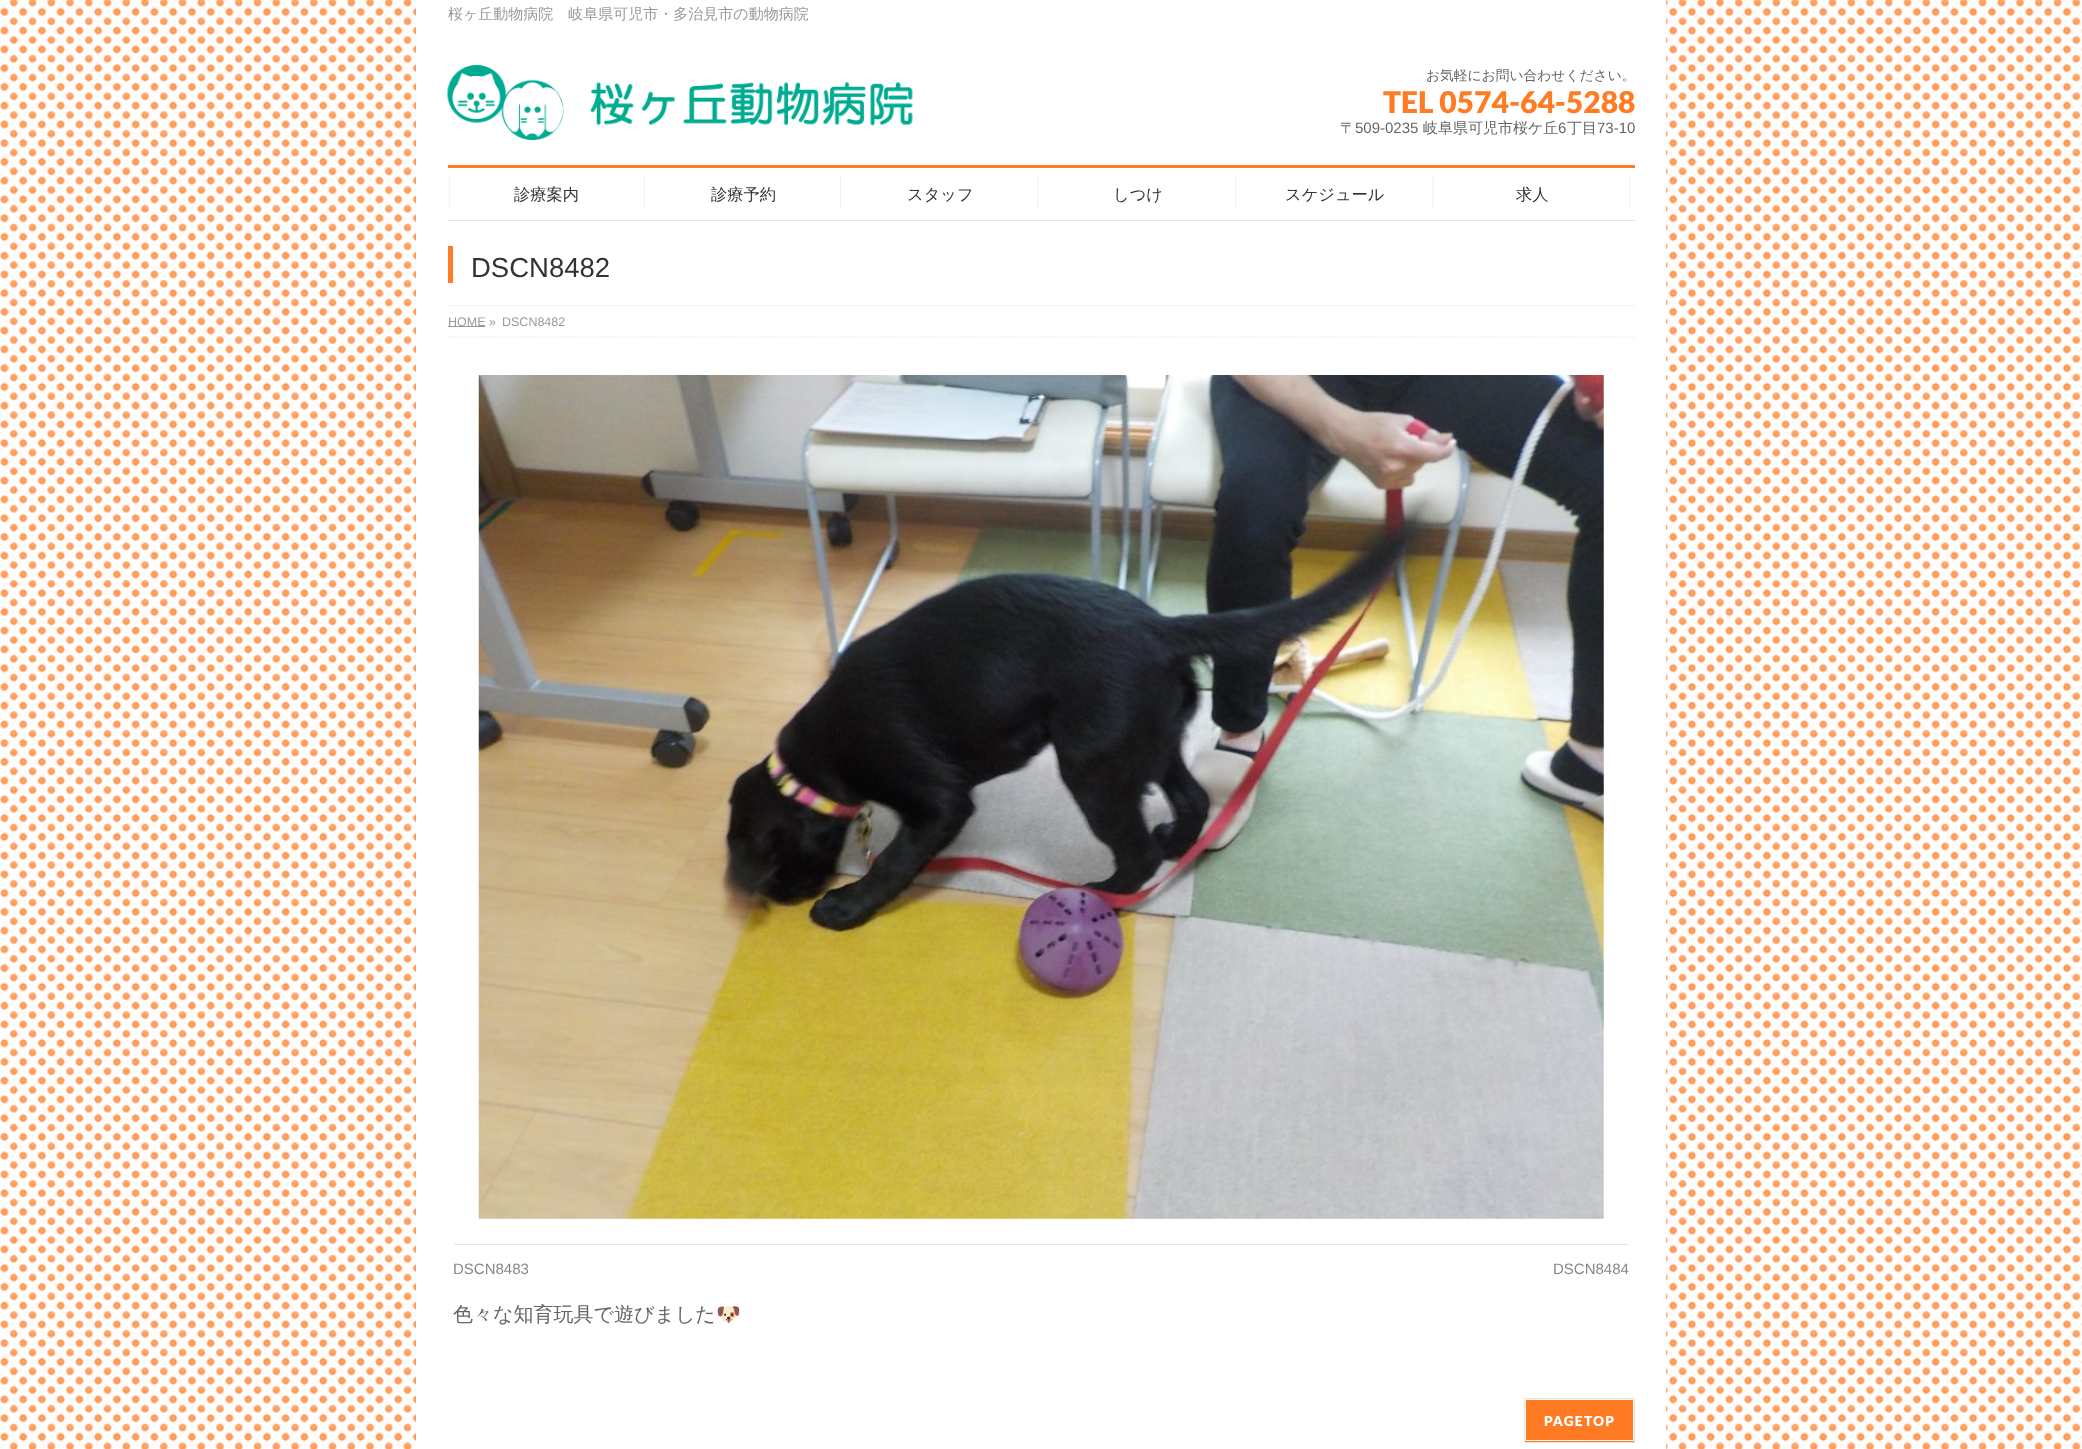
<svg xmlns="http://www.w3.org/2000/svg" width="2082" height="1449">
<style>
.a{font:500 15px WenQuanYi Zen Hei;fill:#999}
.b{font:500 13.75px WenQuanYi Zen Hei;fill:#666}
.c{font:900 30px Lato;fill:#ff7c25}
.d{font:500 15px WenQuanYi Zen Hei;fill:#666}
.e{font:15px Liberation Sans;fill:#666}
.f{font:500 16.25px WenQuanYi Zen Hei;fill:#333}
.g{font:27.5px Liberation Sans;fill:#333}
.h{font:12.5px Liberation Sans;fill:#999}
.i{font:15px Liberation Sans;fill:#888}
.j{font:500 20px WenQuanYi Zen Hei;fill:#666}
.k{font:20px Noto Color Emoji;fill:#666}
.l{font:900 13.75px Lato;letter-spacing:1.25px;fill:#fff}
</style>
<defs>
<clipPath id="clip1"><path d="M416 305h1250v33H416z"/></clipPath>
</defs>
<rect width="100%" height="100%" fill="#fff"/>
<image href="1.png" x="0" y="0" width="2082" height="1449"/>
<path fill="#fff" d="M416 0h1250v221H416z"/>
<image href="2.png" x="447" y="65" width="466" height="75"/>
<path fill="#ff7c25" d="M448 165h1187v3H448z"/>
<path fill="#e5e5e5" d="M448 220h1187v1H448z"/>
<path fill="none" stroke="#e5e5e5" stroke-width="1.2" stroke-dasharray="1.25 1.25" d="M449.5 177.5v32.5"/>
<path fill="none" stroke="#e5e5e5" stroke-width="1.2" stroke-dasharray="1.25 1.25" d="M644.5 177.5v32.5"/>
<path fill="none" stroke="#e5e5e5" stroke-width="1.2" stroke-dasharray="1.25 1.25" d="M840.5 177.5v32.5"/>
<path fill="none" stroke="#e5e5e5" stroke-width="1.2" stroke-dasharray="1.25 1.25" d="M1038 177.5v32.5"/>
<path fill="none" stroke="#e5e5e5" stroke-width="1.2" stroke-dasharray="1.25 1.25" d="M1235.5 177.5v32.5"/>
<path fill="none" stroke="#e5e5e5" stroke-width="1.2" stroke-dasharray="1.25 1.25" d="M1433 177.5v32.5"/>
<path fill="none" stroke="#e5e5e5" stroke-width="1.2" stroke-dasharray="1.25 1.25" d="M1629.5 177.5v32.5"/>
<path fill="#fff" d="M416 221h1250v84H416z"/>
<path fill="#ff7c25" d="M448 246h5v37H448z"/>
<path fill="#fff" d="M416 305h1250v1144H416z"/>
<g clip-path="url(#clip1)">
<path fill="none" stroke="#e5e5e5" stroke-width="1.2" stroke-dasharray="1.25 1.25" d="M447.5 305.5h1187.5"/>
</g>
<path fill="none" stroke="#e5e5e5" stroke-width="1.2" stroke-dasharray="1.25 1.25" d="M447.5 337h1187.5"/>
<path fill="#999" d="M448 326h37v1H448z"/>
<image href="3.png" x="478" y="375" width="1126" height="844"/>
<path fill="#e5e5e5" d="M454 1244h1175v1H454z"/>
<path fill="#ff7c25" d="M1525 1400h109v42H1525z"/>
<path fill="none" stroke="#fff2e9" d="M1525.5 1399.5h108v41H1525.5z"/>
<path fill="none" stroke="#e5e5e5" d="M1524.5 1398.5h110v44H1524.5z"/>
<text class="a" x="448" y="19">桜ヶ丘動物病院　岐阜県可児市・多治見市の動物病院</text>
<text class="b" x="1426" y="80">お気軽にお問い合わせください。</text>
<text class="c" x="1383" y="113">TEL 0574-64-5288</text>
<text class="d" x="1340" y="133">〒</text>
<text class="e" x="1355" y="133">509-0235</text>
<text class="d" x="1423" y="133">岐阜県可児市桜ケ丘</text>
<text class="e" x="1558" y="133">6</text>
<text class="d" x="1567" y="133">丁目</text>
<text class="e" x="1597" y="133">73-10</text>
<text class="f" x="514" y="200">診療案内</text>
<text class="f" x="711" y="200">診療予約</text>
<text class="f" x="907" y="200">スタッフ</text>
<text class="f" x="1113" y="200">しつけ</text>
<text class="f" x="1285" y="200">スケジュール</text>
<text class="f" x="1516" y="200">求人</text>
<text class="g" x="471" y="277">DSCN8482</text>
<text class="h" x="448" y="326">HOME »</text>
<text class="h" x="502" y="326">DSCN8482</text>
<text class="i" x="453" y="1274">DSCN8483</text>
<text class="i" x="1553" y="1274">DSCN8484</text>
<text class="j" x="453" y="1321">色々な知育玩具で遊びました</text>
<text class="k" x="716" y="1321">🐶</text>
<text class="l" x="1544" y="1426">PAGETOP</text>
</svg>
